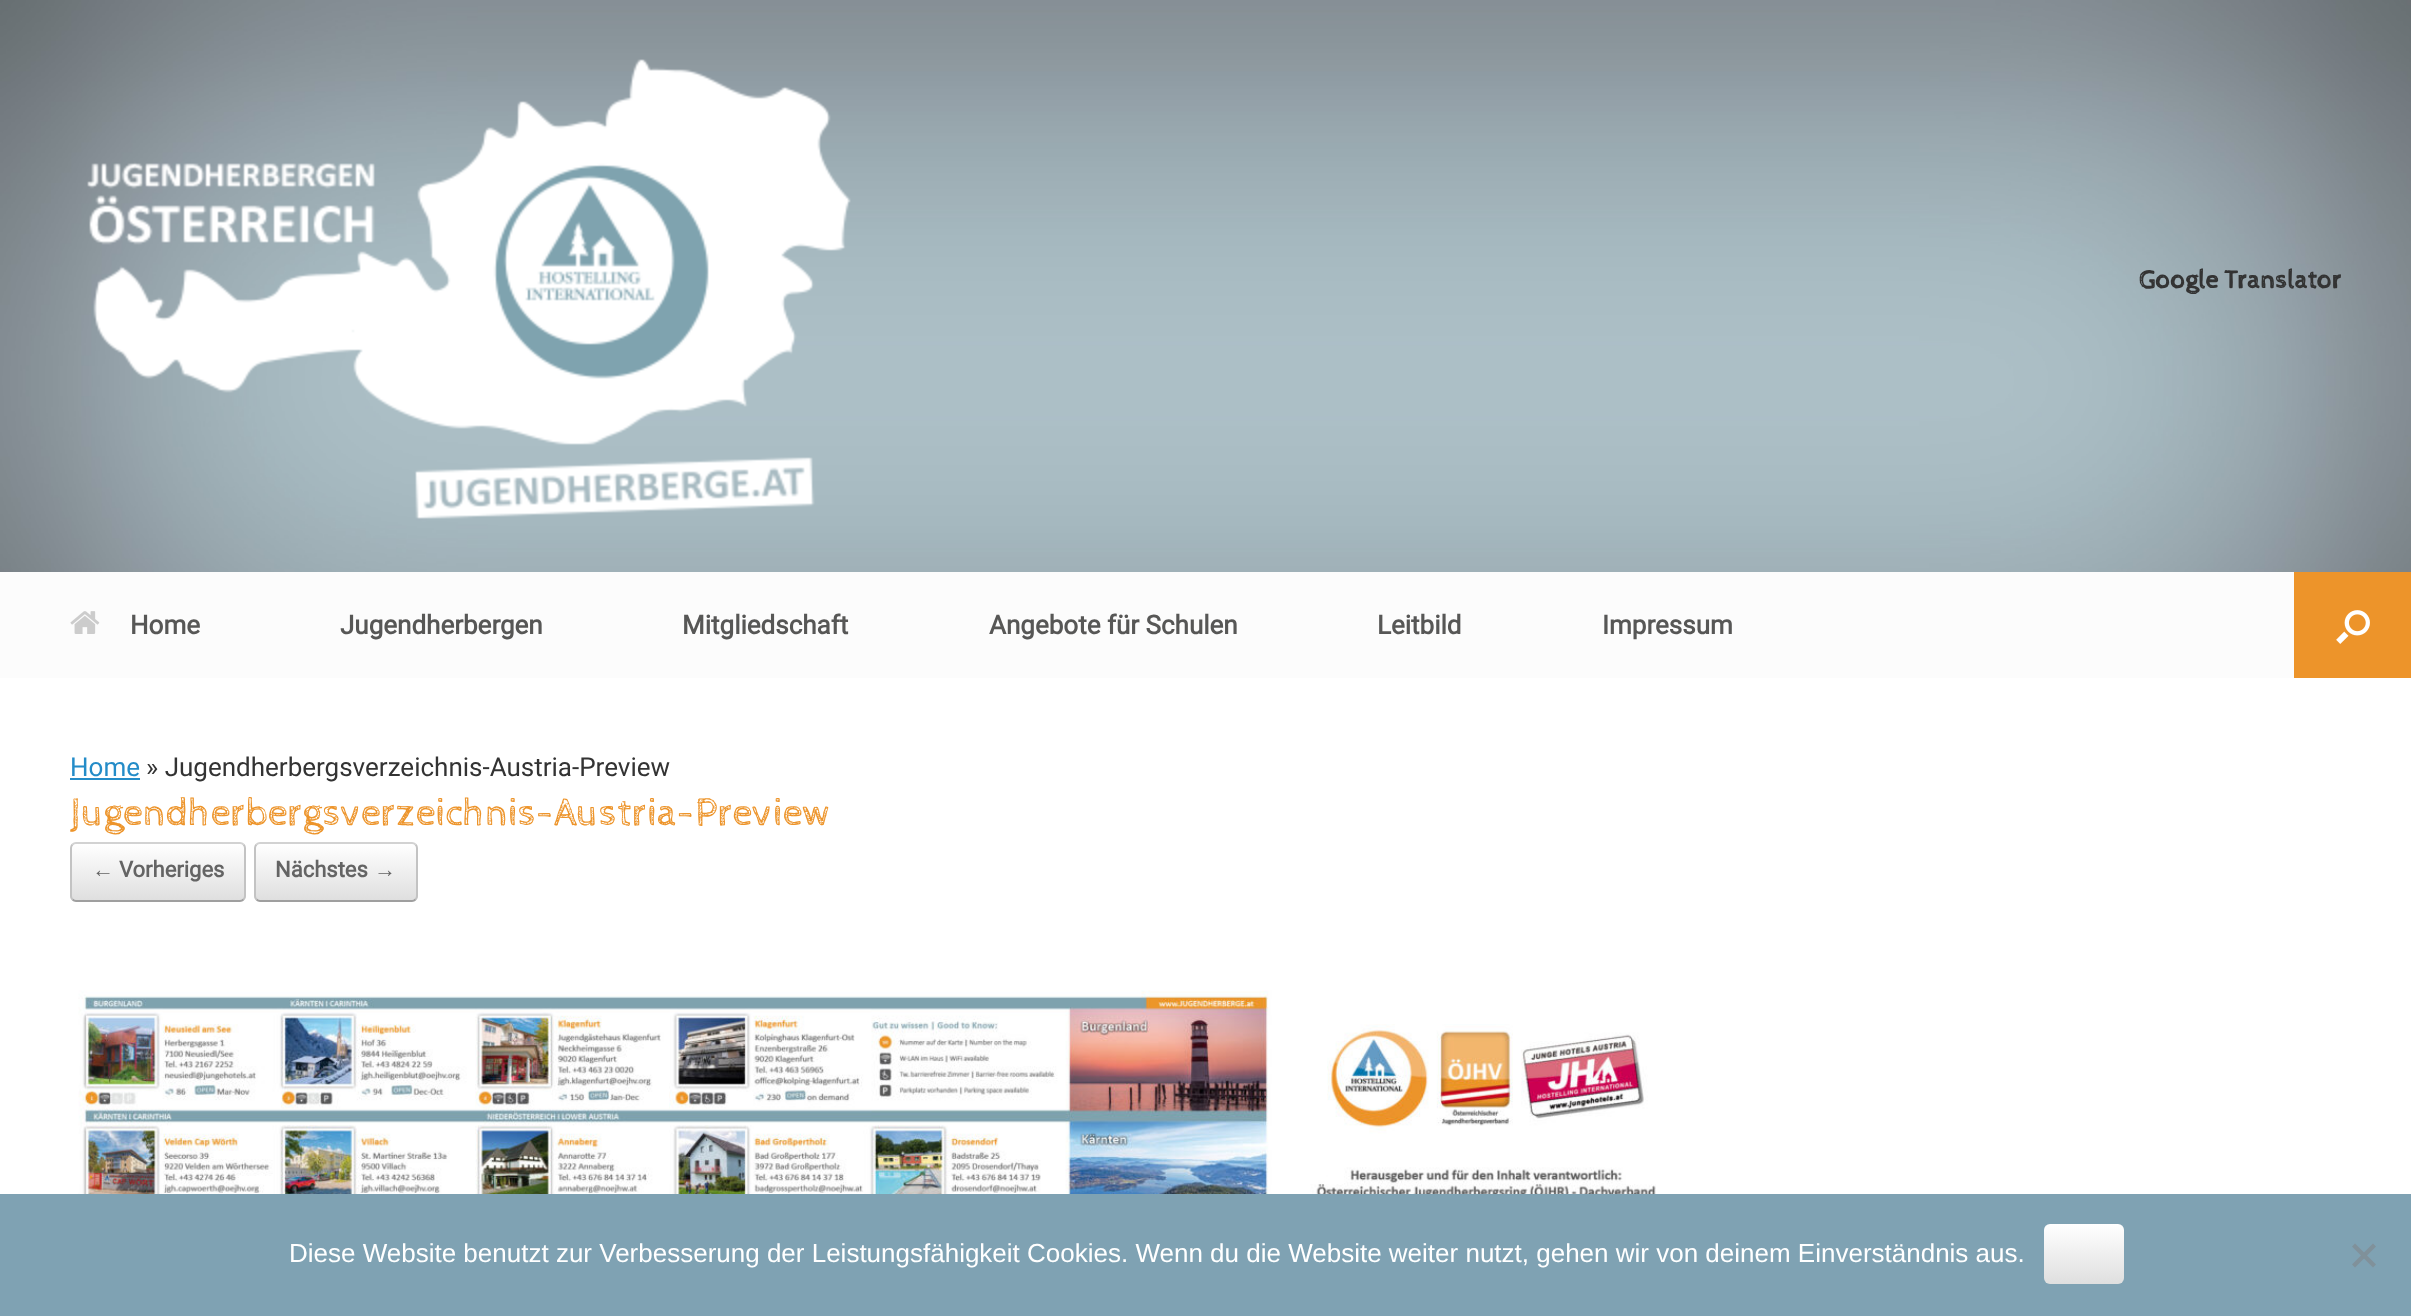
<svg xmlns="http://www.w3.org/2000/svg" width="2411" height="1316">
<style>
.a{font:bold 26px Cabin Sketch;fill:#333}
.b{font:bold 26px Roboto;fill:#575756}
.c{font:26px Roboto;fill:#248cc8}
.d{font:26px Roboto;fill:#333}
.e{font:40px Cabin Sketch;fill:#ed942a}
.f{font:bold 22px Liberation Serif;fill:#646464}
.g{font:bold 22px Roboto;fill:#646464}
.h{font:26px Liberation Sans;fill:#fff}
</style>
<defs>
<clipPath id="clip1"><rect x="70" y="842" width="176" height="60" rx="6"/></clipPath>
<linearGradient id="g1" gradientUnits="userSpaceOnUse" x1="72" y1="900" x2="72" y2="844"><stop offset="0" stop-color="#dfdfdf"/><stop offset="1" stop-color="#fff"/></linearGradient>
<clipPath id="clip2"><rect x="254" y="842" width="164" height="60" rx="6"/></clipPath>
<linearGradient id="g2" gradientUnits="userSpaceOnUse" x1="256" y1="900" x2="256" y2="844"><stop offset="0" stop-color="#dfdfdf"/><stop offset="1" stop-color="#fff"/></linearGradient>
<linearGradient id="g3" gradientUnits="userSpaceOnUse" x1="2044" y1="1284" x2="2044" y2="1224"><stop offset="0" stop-color="#dfdfdf"/><stop offset="1" stop-color="#fff"/></linearGradient>
</defs>
<rect width="100%" height="100%" fill="#fff"/>
<image href="1.png" x="0" y="0" width="2411" height="572"/>
<image href="2.png" x="87" y="59" width="764" height="460"/>
<path fill="#fcfcfc" d="M0 572h2294v106H0z"/>
<image href="3.png" x="70" y="611" width="30" height="23"/>
<path fill="#ed942a" d="M2294 572h117v106H2294z"/>
<image href="4.png" x="2336" y="610" width="34" height="34"/>
<path fill="#248cc8" d="M70 778h70v2H70z"/>
<g clip-path="url(#clip1)">
<path fill="url(#g1)" d="M70 844h176v56H70z"/>
</g>
<path fill="none" stroke="#d2d2d2" stroke-width="2" d="M72.5 844.5c1-1 2-1.5 3.5-1.5h164c1.5 0 2.5 .5 3.5 1.5"/>
<path fill="none" stroke="#c3c3c3" stroke-width="2" d="M243.5 844.5c1 1 1.5 2 1.5 3.5v48c0 1.5-.5 2.5-1.5 3.5"/>
<path fill="none" stroke="#9f9f9f" stroke-width="2" d="M243.5 899.5c-1 1-2 1.5-3.5 1.5h-164c-1.5 0-2.5-.5-3.5-1.5"/>
<path fill="none" stroke="#c3c3c3" stroke-width="2" d="M72.5 899.5c-1-1-1.5-2-1.5-3.5v-48c0-1.5 .5-2.5 1.5-3.5"/>
<g clip-path="url(#clip2)">
<path fill="url(#g2)" d="M254 844h164v56H254z"/>
</g>
<path fill="none" stroke="#d2d2d2" stroke-width="2" d="M256.5 844.5c1-1 2-1.5 3.5-1.5h152c1.5 0 2.5 .5 3.5 1.5"/>
<path fill="none" stroke="#c3c3c3" stroke-width="2" d="M415.5 844.5c1 1 1.5 2 1.5 3.5v48c0 1.5-.5 2.5-1.5 3.5"/>
<path fill="none" stroke="#9f9f9f" stroke-width="2" d="M415.5 899.5c-1 1-2 1.5-3.5 1.5h-152c-1.5 0-2.5-.5-3.5-1.5"/>
<path fill="none" stroke="#c3c3c3" stroke-width="2" d="M256.5 899.5c-1-1-1.5-2-1.5-3.5v-48c0-1.5 .5-2.5 1.5-3.5"/>
<image href="5.png" x="78" y="990" width="1578" height="204"/>
<path fill="#7fa2b3" d="M0 1194h2411v122H0z"/>
<rect fill="url(#g3)" x="2044" y="1224" width="80" height="60" rx="6"/>
<path fill="#80919a" d="M2373 1243.5l3 3l-21 21l-3-3z"/>
<path fill="#80919a" d="M2352 1246.5l3-3l21 21l-3 3z"/>
<text class="a" x="2139" y="288">Google Translator</text>
<text class="b" x="130" y="634">Home</text>
<text class="b" x="340" y="634">Jugendherbergen</text>
<text class="b" x="682" y="634">Mitgliedschaft</text>
<text class="b" x="989" y="634">Angebote für Schulen</text>
<text class="b" x="1377" y="634">Leitbild</text>
<text class="b" x="1602" y="634">Impressum</text>
<text class="c" x="70" y="776">Home</text>
<text class="d" x="146" y="776">» Jugendherbergsverzeichnis-Austria-Preview</text>
<text class="e" x="70" y="825">Jugendherbergsverzeichnis-Austria-Preview</text>
<text class="f" x="92" y="877">←</text>
<text class="g" x="119" y="877">Vorheriges</text>
<text class="g" x="275" y="877">Nächstes</text>
<text class="f" x="374" y="877">→</text>
<text class="h" x="289" y="1262">Diese Website benutzt zur Verbesserung der Leistungsfähigkeit Cookies. Wenn du die Website weiter nutzt, gehen wir von deinem Einverständnis aus.</text>
</svg>
